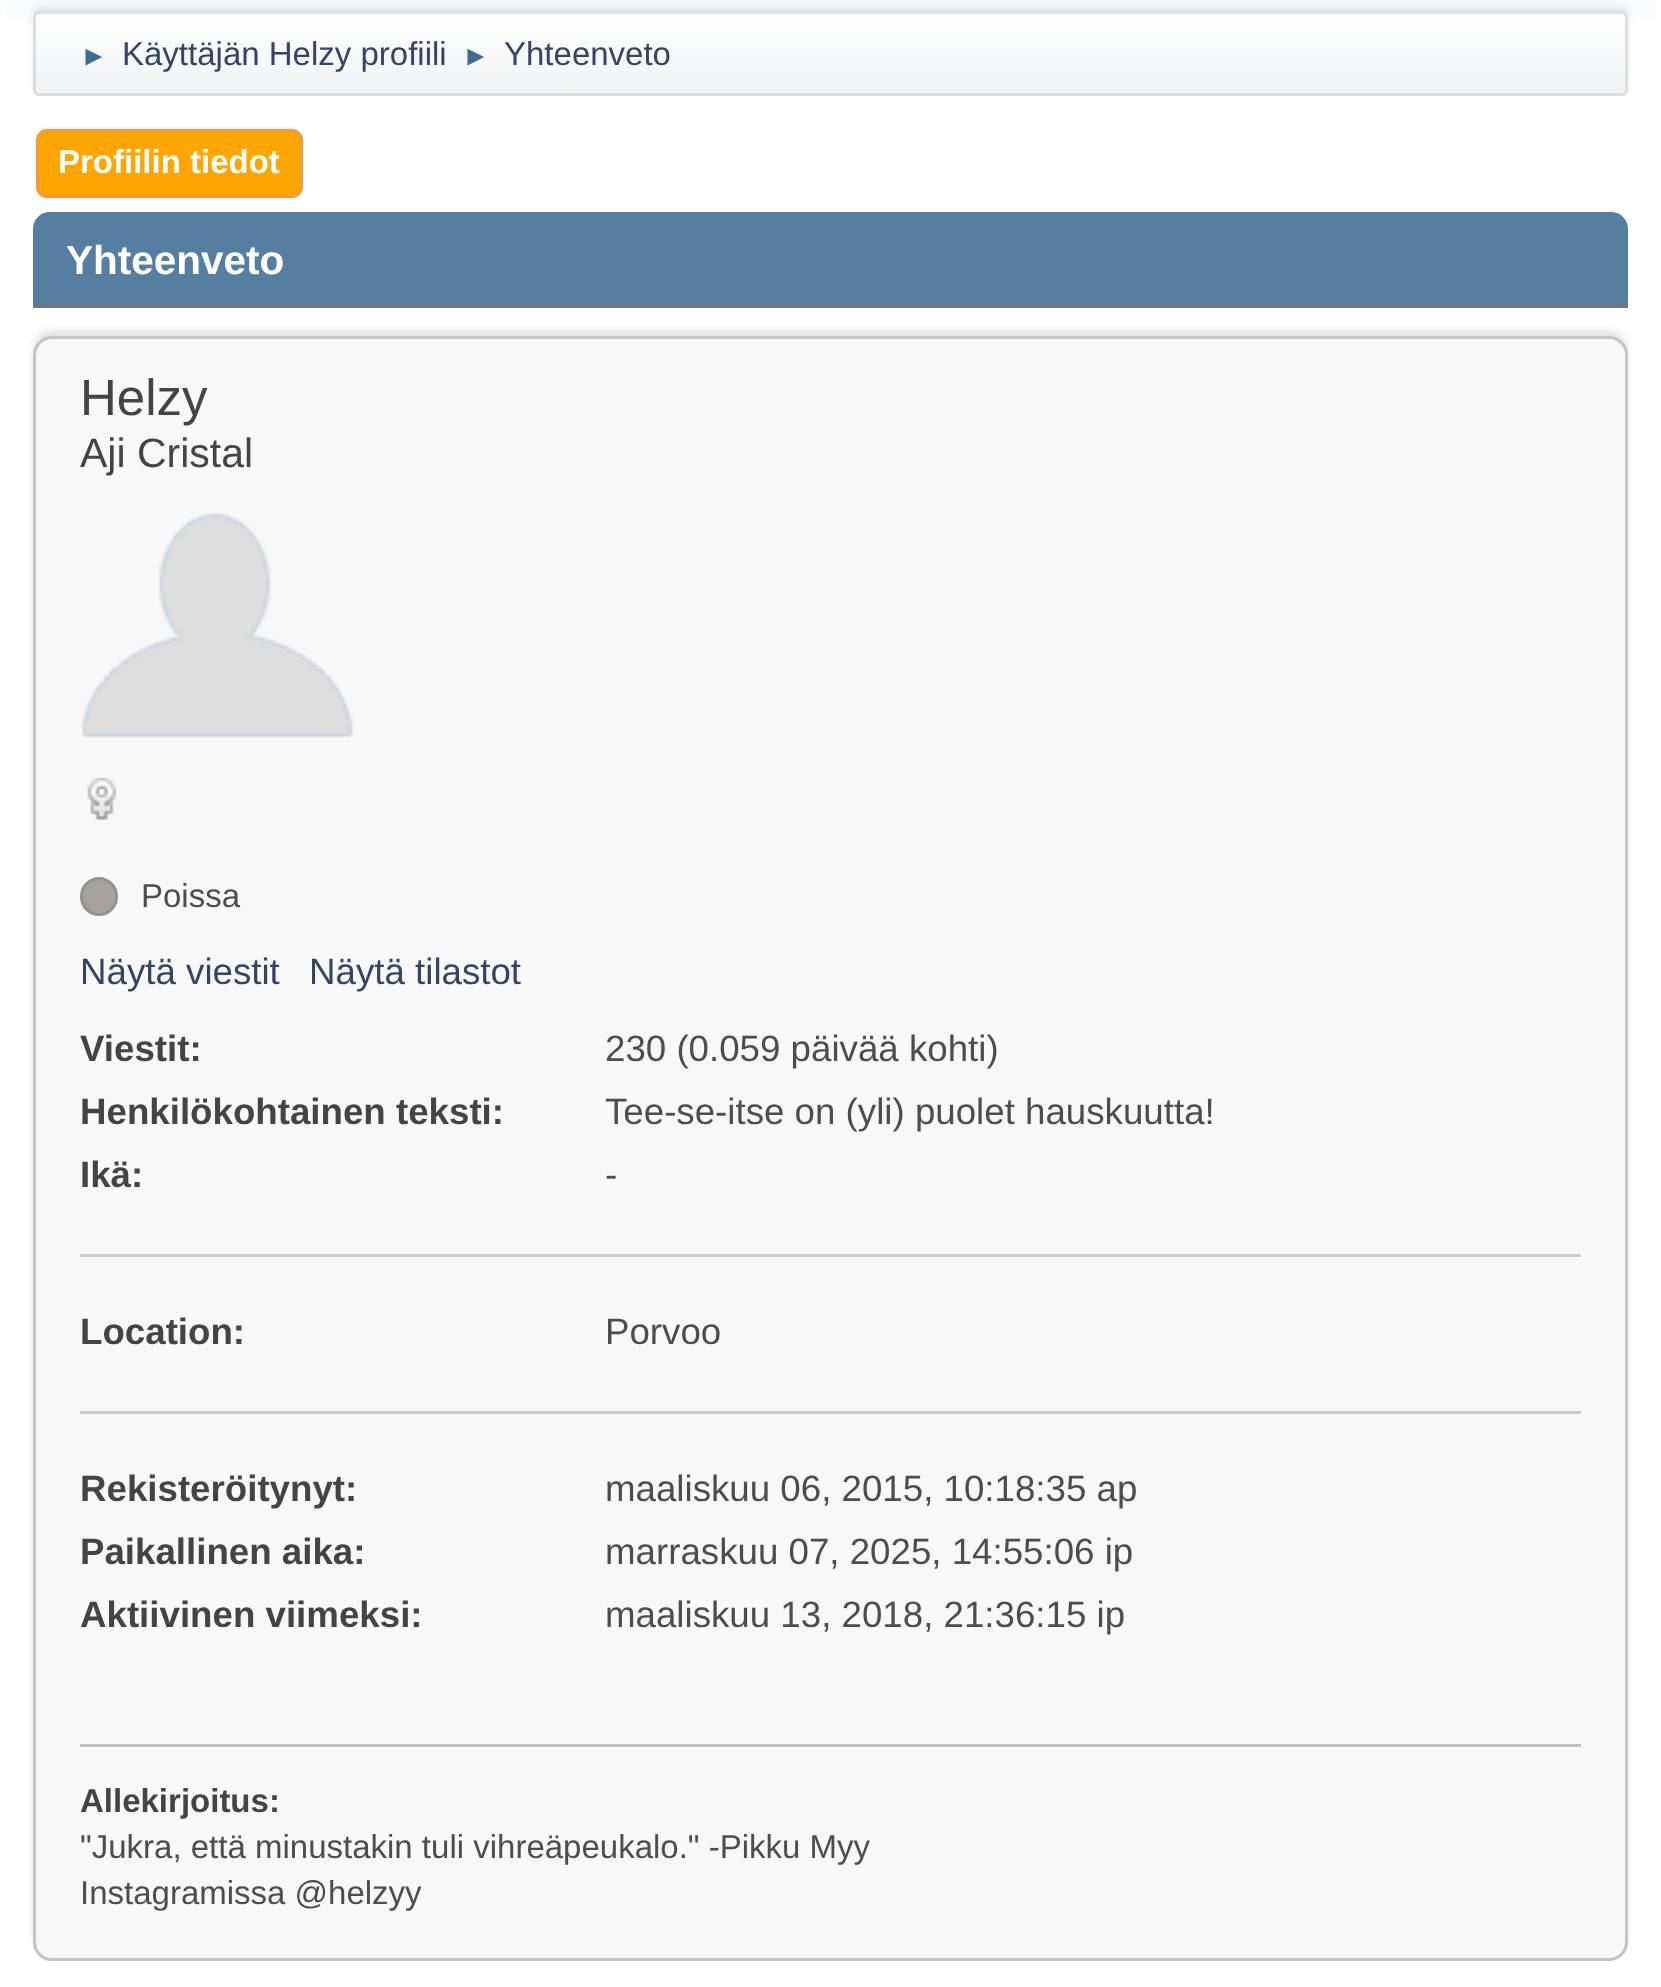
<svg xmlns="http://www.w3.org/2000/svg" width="1661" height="1987">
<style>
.a{font:28px Liberation Sans;fill:#3f6b8c}
.b{font:33px Liberation Sans;fill:#346}
.c{font:bold 33px Liberation Sans;fill:#fff}
.d{font:bold 40.5px Liberation Sans;fill:#fff}
.e{font:51px Liberation Sans;fill:#444}
.f{font:41px Liberation Sans;fill:#444}
.g{font:33px Liberation Sans;fill:#4d4d4d}
.h{font:36.7px Liberation Sans;fill:#346}
.i{font:bold 36.7px Liberation Sans;fill:#444}
.j{font:36.7px Liberation Sans;fill:#4d4d4d}
.k{font:bold 33px Liberation Sans;fill:#444}
</style>
<defs>
<linearGradient id="g1" gradientUnits="userSpaceOnUse" x1="831" y1="-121" x2="831" y2="102"><stop offset="0" stop-color="#e2e9f3"/><stop offset="0.7" stop-color="#fff"/></linearGradient>
<clipPath id="clip1"><rect x="33" y="11" width="1595" height="85" rx="6"/></clipPath>
<linearGradient id="g2" gradientUnits="userSpaceOnUse" x1="831" y1="14" x2="831" y2="94"><stop offset="0" stop-color="#fff"/><stop offset="0.95" stop-color="#f1f3f5"/></linearGradient>
</defs>
<rect width="100%" height="100%" fill="#fff"/>
<path fill="url(#g1)" d="M6 0h1650v22H6z"/>
<rect fill="#00000014" filter="blur(3px)" x="33" y="6" width="1595" height="85" rx="6"/>
<g clip-path="url(#clip1)">
<path fill="url(#g2)" d="M33 14h1595v80H33z"/>
</g>
<rect fill="none" stroke="#ddd" stroke-width="3" x="34.5" y="12.5" width="1592" height="82" rx="4.5"/>
<rect fill="#ffa500" stroke="#f49a3a" stroke-width="3" x="37.5" y="130.5" width="264" height="66" rx="9.5"/>
<path fill="#557ea0" d="M50 212h1561c9.5 0 17 7.5 17 17v79h-1595v-79c0-9.5 7.5-17 17-17z"/>
<path fill="#777" d="M33 305h1595v3H33z"/>
<rect fill="#0000001a" filter="blur(3px)" x="33" y="330" width="1595" height="1625" rx="19"/>
<rect fill="#f8f8f8" stroke="#c5c5c5" stroke-width="3" x="34.5" y="337.5" width="1592" height="1622" rx="17.5"/>
<image href="1.png" x="81" y="513" width="272" height="225"/>
<image href="2.png" x="87" y="778" width="30" height="43"/>
<rect fill="#a7a2a2" stroke="#969292" stroke-width="3" x="81.5" y="878.5" width="35" height="36" rx="17.5"/>
<path fill="#ccc" d="M80 1254h1501v3H80z"/>
<path fill="#ccc" d="M80 1411h1501v3H80z"/>
<path fill="#fff" d="M80 1747h1501v2H80z"/>
<path fill="#bfbfbf" d="M80 1744h1501v3H80z"/>
<text class="a" x="80" y="65">►</text>
<text class="b" x="122" y="65">Käyttäjän Helzy profiili</text>
<text class="a" x="462" y="65">►</text>
<text class="b" x="504" y="65">Yhteenveto</text>
<text class="c" x="58" y="173">Profiilin tiedot</text>
<text class="d" x="66" y="274">Yhteenveto</text>
<text class="e" x="80" y="415">Helzy</text>
<text class="f" x="80" y="467">Aji Cristal</text>
<text class="g" x="141" y="907">Poissa</text>
<text class="h" x="80" y="984">Näytä viestit</text>
<text class="h" x="309" y="984">Näytä tilastot</text>
<text class="i" x="80" y="1061">Viestit:</text>
<text class="j" x="605" y="1061">230 (0.059 päivää kohti)</text>
<text class="i" x="80" y="1124">Henkilökohtainen teksti:</text>
<text class="j" x="605" y="1124">Tee-se-itse on (yli) puolet hauskuutta!</text>
<text class="i" x="80" y="1187">Ikä:</text>
<text class="j" x="605" y="1187">-</text>
<text class="i" x="80" y="1344">Location:</text>
<text class="j" x="605" y="1344">Porvoo</text>
<text class="i" x="80" y="1501">Rekisteröitynyt:</text>
<text class="j" x="605" y="1501">maaliskuu 06, 2015, 10:18:35 ap</text>
<text class="i" x="80" y="1564">Paikallinen aika:</text>
<text class="j" x="605" y="1564">marraskuu 07, 2025, 14:55:06 ip</text>
<text class="i" x="80" y="1627">Aktiivinen viimeksi:</text>
<text class="j" x="605" y="1627">maaliskuu 13, 2018, 21:36:15 ip</text>
<text class="k" x="80" y="1812">Allekirjoitus:</text>
<text class="g" x="80" y="1858">"Jukra, että minustakin tuli vihreäpeukalo." -Pikku Myy</text>
<text class="g" x="80" y="1904">Instagramissa @helzyy</text>
</svg>
